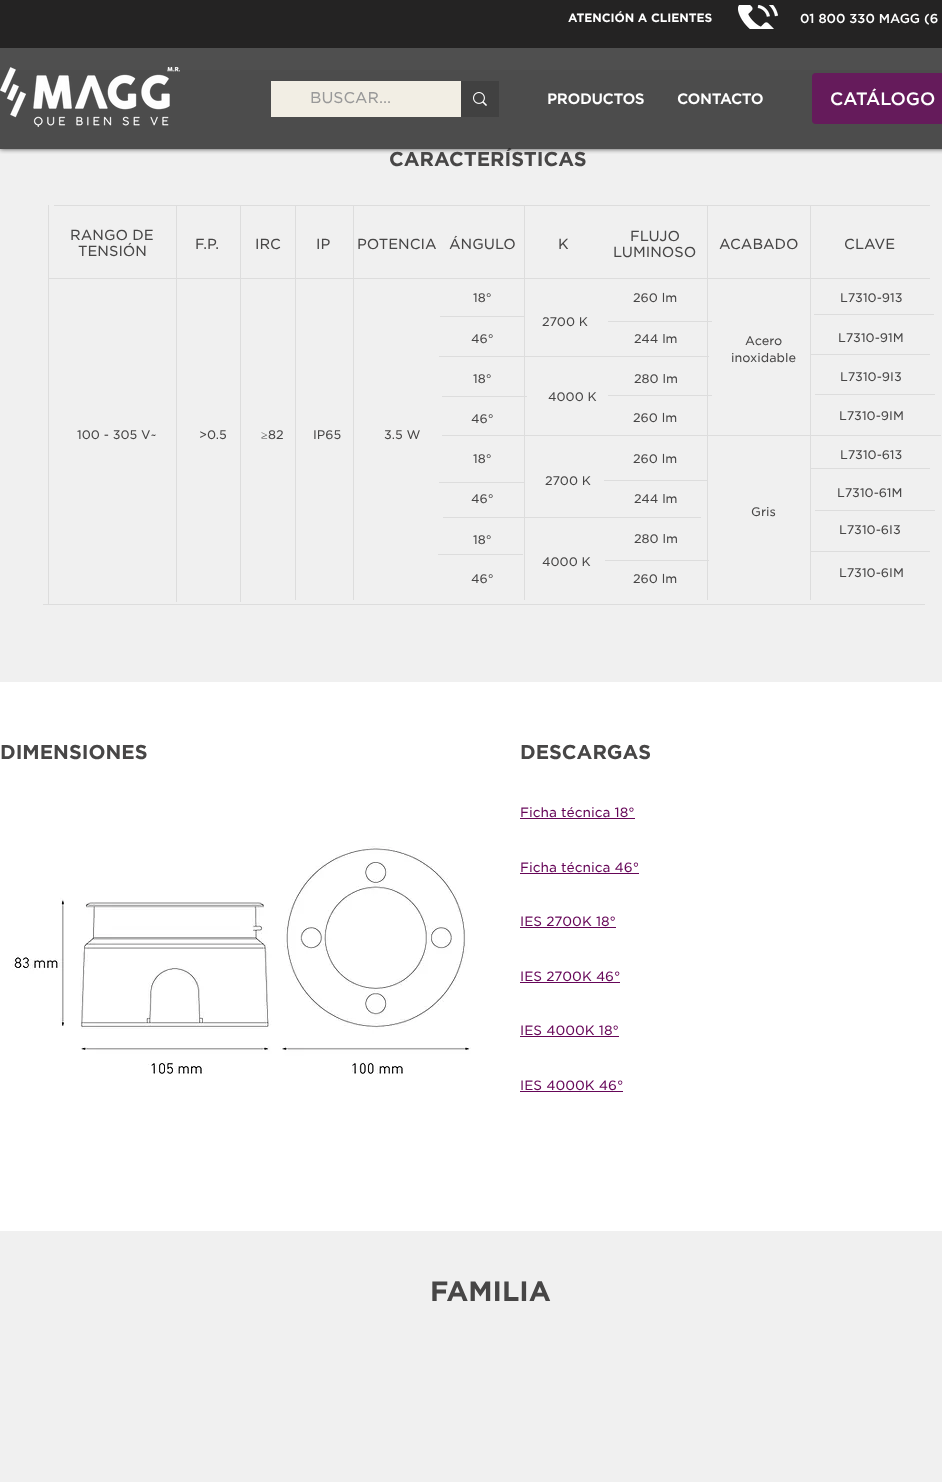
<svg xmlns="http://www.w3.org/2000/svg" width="942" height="1482">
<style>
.a{font:bold 12px Gotham;fill:#fff}
.b{font:500 13px Gotham;fill:#fff}
.c{font:bold 20px Gotham;fill:#474646}
.d{font:500 18px Gotham;fill:#fff}
.e{font:bold 14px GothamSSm;fill:#fff}
.f{font:15px GothamSSm;fill:#999}
.g{font:14px GothamSSm;fill:#474646}
.h{font:12px GothamSSm;fill:#474646}
.i{font:12px Liberation Serif;fill:#474646}
.j{font:13px GothamSSm;fill:#660658}
.k{font:bold 28px Gotham;fill:#474646}
</style>
<defs>
<clipPath id="clip1"><path d="M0 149h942v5H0z"/></clipPath>
</defs>
<rect width="100%" height="100%" fill="#fff"/>
<path fill="#f0f0f0" d="M0 70h942v612H0z"/>
<g clip-path="url(#clip1)">
<path fill="#000000b3" filter="blur(2.5px)" d="M0 0h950v149H0z"/>
</g>
<path fill="#242323" d="M0 0h942v48H0z"/>
<image href="1.png" x="738" y="5" width="40" height="24"/>
<path fill="#ddd" d="M48 278h882v1H48z"/>
<path fill="#ddd" d="M48 205h1v399H48z"/>
<path fill="#ddd" d="M54 205h876v1H54z"/>
<path fill="#ddd" d="M176 205h1v397H176z"/>
<path fill="#ddd" d="M240 205h1v397H240z"/>
<path fill="#ddd" d="M295 205h1v395H295z"/>
<path fill="#ddd" d="M353 205h1v395H353z"/>
<path fill="#ddd" d="M440 316h85v1H440z"/>
<path fill="#ddd" d="M439 356h270v1H439z"/>
<path fill="#ddd" d="M524 205h1v395H524z"/>
<path fill="#ddd" d="M608 321h104v1H608z"/>
<path fill="#ddd" d="M707 205h1v395H707z"/>
<path fill="#ddd" d="M810 354h120v1H810z"/>
<path fill="#ddd" d="M810 205h1v395H810z"/>
<path fill="#ddd" d="M814 314h120v1H814z"/>
<path fill="#ddd" d="M815 394h120v1H815z"/>
<path fill="#ddd" d="M608 395h104v1H608z"/>
<path fill="#ddd" d="M442 396h85v1H442z"/>
<path fill="#ddd" d="M442 435h499v1H442z"/>
<path fill="#ddd" d="M810 468h120v1H810z"/>
<path fill="#ddd" d="M604 480h104v1H604z"/>
<path fill="#ddd" d="M439 482h85v1H439z"/>
<path fill="#ddd" d="M815 510h120v1H815z"/>
<path fill="#ddd" d="M443 517h258v1H443z"/>
<path fill="#ddd" d="M810 551h120v1H810z"/>
<path fill="#ddd" d="M438 554h85v1H438z"/>
<path fill="#ddd" d="M605 560h104v1H605z"/>
<path fill="#ddd" d="M43 604h882v1H43z"/>
<path fill="#660658" d="M520 818h115v1H520z"/>
<path fill="#660658" d="M520 873h119v1H520z"/>
<path fill="#660658" d="M520 927h96v1H520z"/>
<path fill="#660658" d="M520 982h100v1H520z"/>
<path fill="#660658" d="M520 1036h99v1H520z"/>
<path fill="#660658" d="M520 1091h103v1H520z"/>
<image href="4.png" x="12" y="846" width="459" height="228"/>
<path fill="#f0f0f0" d="M0 1231h942v251H0z"/>
<text class="a" x="568" y="22">ATENCIÓN A CLIENTES</text>
<text class="b" x="800" y="23">01 800 330 MAGG (6</text>
<text class="c" x="389" y="166">CARACTERÍSTICAS</text>
<path fill="#232323cc" d="M0 48h942v101H0z"/>
<rect fill="#651b5b" x="812" y="73" width="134" height="51" rx="4"/>
<text class="d" x="830" y="105">CATÁLOGO</text>
<text class="e" x="547" y="104">PRODUCTOS</text>
<text class="e" x="677" y="104">CONTACTO</text>
<path fill="#f2eee4" d="M271 81h190v36H271z"/>
<text class="f" x="310" y="103">BUSCAR...</text>
<path fill="#414141" d="M461 81h38v36H461z"/>
<image href="3.png" x="473" y="92" width="14" height="14"/>
<image href="2.png" x="0" y="67" width="180" height="60"/>
<text class="g" x="70" y="240">RANGO DE</text>
<text class="g" x="78" y="256">TENSIÓN</text>
<text class="g" x="195" y="249">F.P.</text>
<text class="g" x="255" y="249">IRC</text>
<text class="g" x="316" y="249">IP</text>
<text class="g" x="357" y="249">POTENCIA</text>
<text class="g" x="449" y="249">ÁNGULO</text>
<text class="g" x="558" y="249">K</text>
<text class="g" x="630" y="241">FLUJO</text>
<text class="g" x="613" y="257">LUMINOSO</text>
<text class="g" x="719" y="249">ACABADO</text>
<text class="g" x="844" y="249">CLAVE</text>
<text class="h" x="473" y="302">18°</text>
<text class="h" x="633" y="302">260 lm</text>
<text class="h" x="840" y="302">L7310-913</text>
<text class="h" x="542" y="326">2700 K</text>
<text class="h" x="471" y="343">46°</text>
<text class="h" x="634" y="343">244 lm</text>
<text class="h" x="745" y="345">Acero</text>
<text class="h" x="731" y="362">inoxidable</text>
<text class="h" x="838" y="342">L7310-91M</text>
<text class="h" x="473" y="383">18°</text>
<text class="h" x="634" y="383">280 lm</text>
<text class="h" x="840" y="381">L7310-9I3</text>
<text class="h" x="548" y="401">4000 K</text>
<text class="h" x="471" y="423">46°</text>
<text class="h" x="633" y="422">260 lm</text>
<text class="h" x="839" y="420">L7310-9IM</text>
<text class="h" x="77" y="439">100 - 305 V~</text>
<text class="h" x="199" y="439">&gt;0.5</text>
<text class="i" x="261" y="439">≥</text>
<text class="h" x="268" y="439">82</text>
<text class="h" x="313" y="439">IP65</text>
<text class="h" x="384" y="439">3.5 W</text>
<text class="h" x="473" y="463">18°</text>
<text class="h" x="633" y="463">260 lm</text>
<text class="h" x="840" y="459">L7310-613</text>
<text class="h" x="545" y="485">2700 K</text>
<text class="h" x="471" y="503">46°</text>
<text class="h" x="634" y="503">244 lm</text>
<text class="h" x="837" y="497">L7310-61M</text>
<text class="h" x="751" y="516">Gris</text>
<text class="h" x="839" y="534">L7310-6I3</text>
<text class="h" x="473" y="544">18°</text>
<text class="h" x="634" y="543">280 lm</text>
<text class="h" x="542" y="566">4000 K</text>
<text class="h" x="471" y="583">46°</text>
<text class="h" x="633" y="583">260 lm</text>
<text class="h" x="839" y="577">L7310-6IM</text>
<text class="c" x="0" y="759">DIMENSIONES</text>
<text class="c" x="520" y="759">DESCARGAS</text>
<text class="j" x="520" y="817">Ficha técnica 18°</text>
<text class="j" x="520" y="872">Ficha técnica 46°</text>
<text class="j" x="520" y="926">IES 2700K 18°</text>
<text class="j" x="520" y="981">IES 2700K 46°</text>
<text class="j" x="520" y="1035">IES 4000K 18°</text>
<text class="j" x="520" y="1090">IES 4000K 46°</text>
<text class="k" x="430" y="1301">FAMILIA</text>
</svg>
